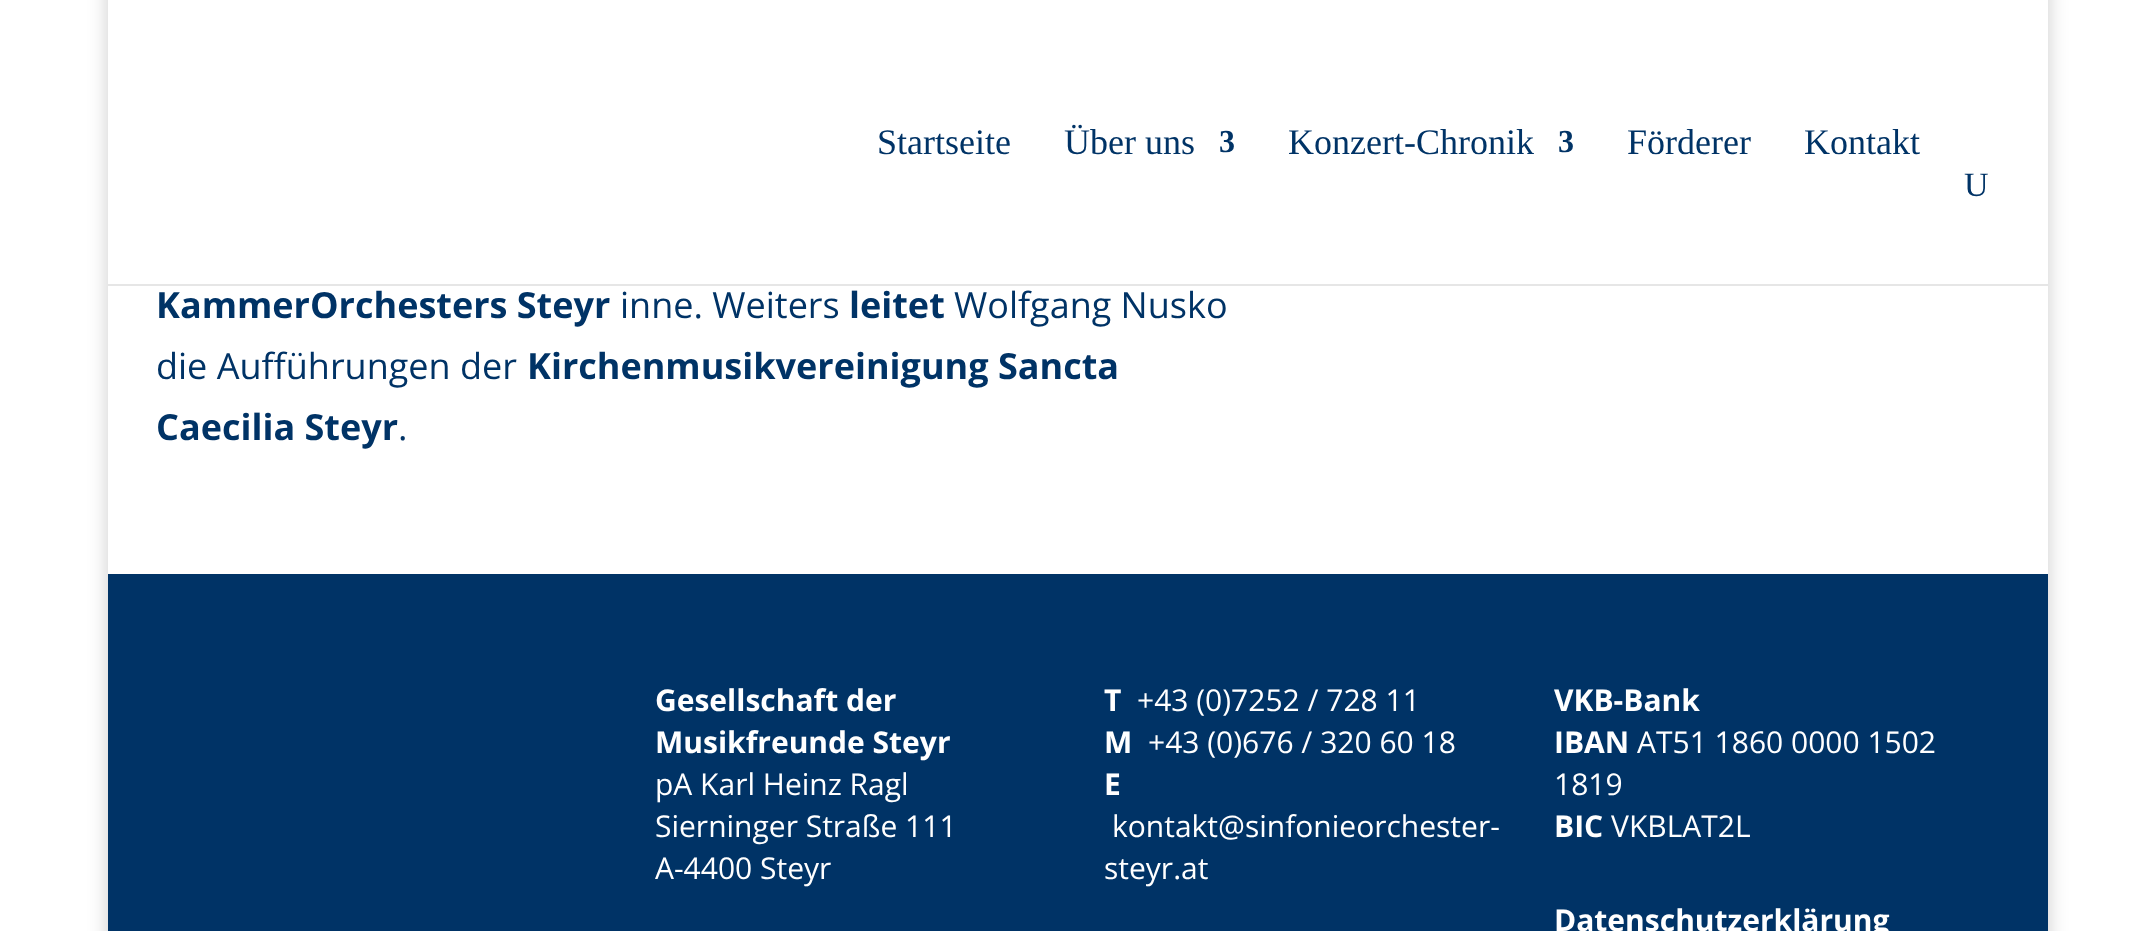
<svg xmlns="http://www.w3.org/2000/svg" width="2156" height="931">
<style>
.a{font:36px Liberation Serif;fill:#036}
.b{font:bold 32px Liberation Serif;fill:#036}
.c{font:34px Liberation Serif;fill:#036}
.d{font:bold 36px Open Sans;fill:#036}
.e{font:36px Open Sans;fill:#036}
.f{font:bold 30px Open Sans;fill:#fff}
.g{font:30px Open Sans;fill:#fff}
</style>
<defs>
<clipPath id="clip1"><path d="M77 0h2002v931h-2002zm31-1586h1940v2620h-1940z" clip-rule="evenodd"/></clipPath>
</defs>
<rect width="100%" height="100%" fill="#fff"/>
<g clip-path="url(#clip1)">
<path fill="#00000033" filter="blur(10px)" d="M108 -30h1940v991H108z"/>
</g>
<path fill="#e6e6e6" d="M108 284h1940v2H108z"/>
<path fill="#036" d="M108 574h1940v357H108z"/>
<text class="a" x="877" y="154">Startseite</text>
<text class="a" x="1064" y="154">Über uns</text>
<text class="b" x="1219" y="152">3</text>
<text class="a" x="1288" y="154">Konzert-Chronik</text>
<text class="b" x="1558" y="152">3</text>
<text class="a" x="1627" y="154">Förderer</text>
<text class="a" x="1804" y="154">Kontakt</text>
<text class="c" x="1964" y="196">U</text>
<text class="d" x="156" y="318">KammerOrchesters Steyr</text>
<text class="e" x="620" y="318">inne. Weiters</text>
<text class="d" x="849" y="318">leitet</text>
<text class="e" x="954" y="318">Wolfgang Nusko</text>
<text class="e" x="156" y="379">die Aufführungen der</text>
<text class="d" x="527" y="379">Kirchenmusikvereinigung Sancta</text>
<text class="d" x="156" y="440">Caecilia Steyr</text>
<text class="e" x="398" y="440">.</text>
<text class="f" x="655" y="711">Gesellschaft der</text>
<text class="f" x="655" y="753">Musikfreunde Steyr</text>
<text class="g" x="655" y="795">pA Karl Heinz Ragl</text>
<text class="g" x="655" y="837">Sierninger Straße 111</text>
<text class="g" x="655" y="879">A-4400 Steyr</text>
<text class="f" x="1104" y="711">T</text>
<text class="g" x="1137" y="711">+43 (0)7252 / 728 11</text>
<text class="f" x="1104" y="753">M</text>
<text class="g" x="1148" y="753">+43 (0)676 / 320 60 18</text>
<text class="f" x="1104" y="795">E</text>
<text class="g" x="1112" y="837">kontakt@sinfonieorchester-</text>
<text class="g" x="1104" y="879">steyr.at</text>
<text class="f" x="1554" y="711">VKB-Bank</text>
<text class="f" x="1554" y="753">IBAN</text>
<text class="g" x="1637" y="753">AT51 1860 0000 1502</text>
<text class="g" x="1554" y="795">1819</text>
<text class="f" x="1554" y="837">BIC</text>
<text class="g" x="1611" y="837">VKBLAT2L</text>
<text class="f" x="1554" y="931">Datenschutzerklärung</text>
</svg>
